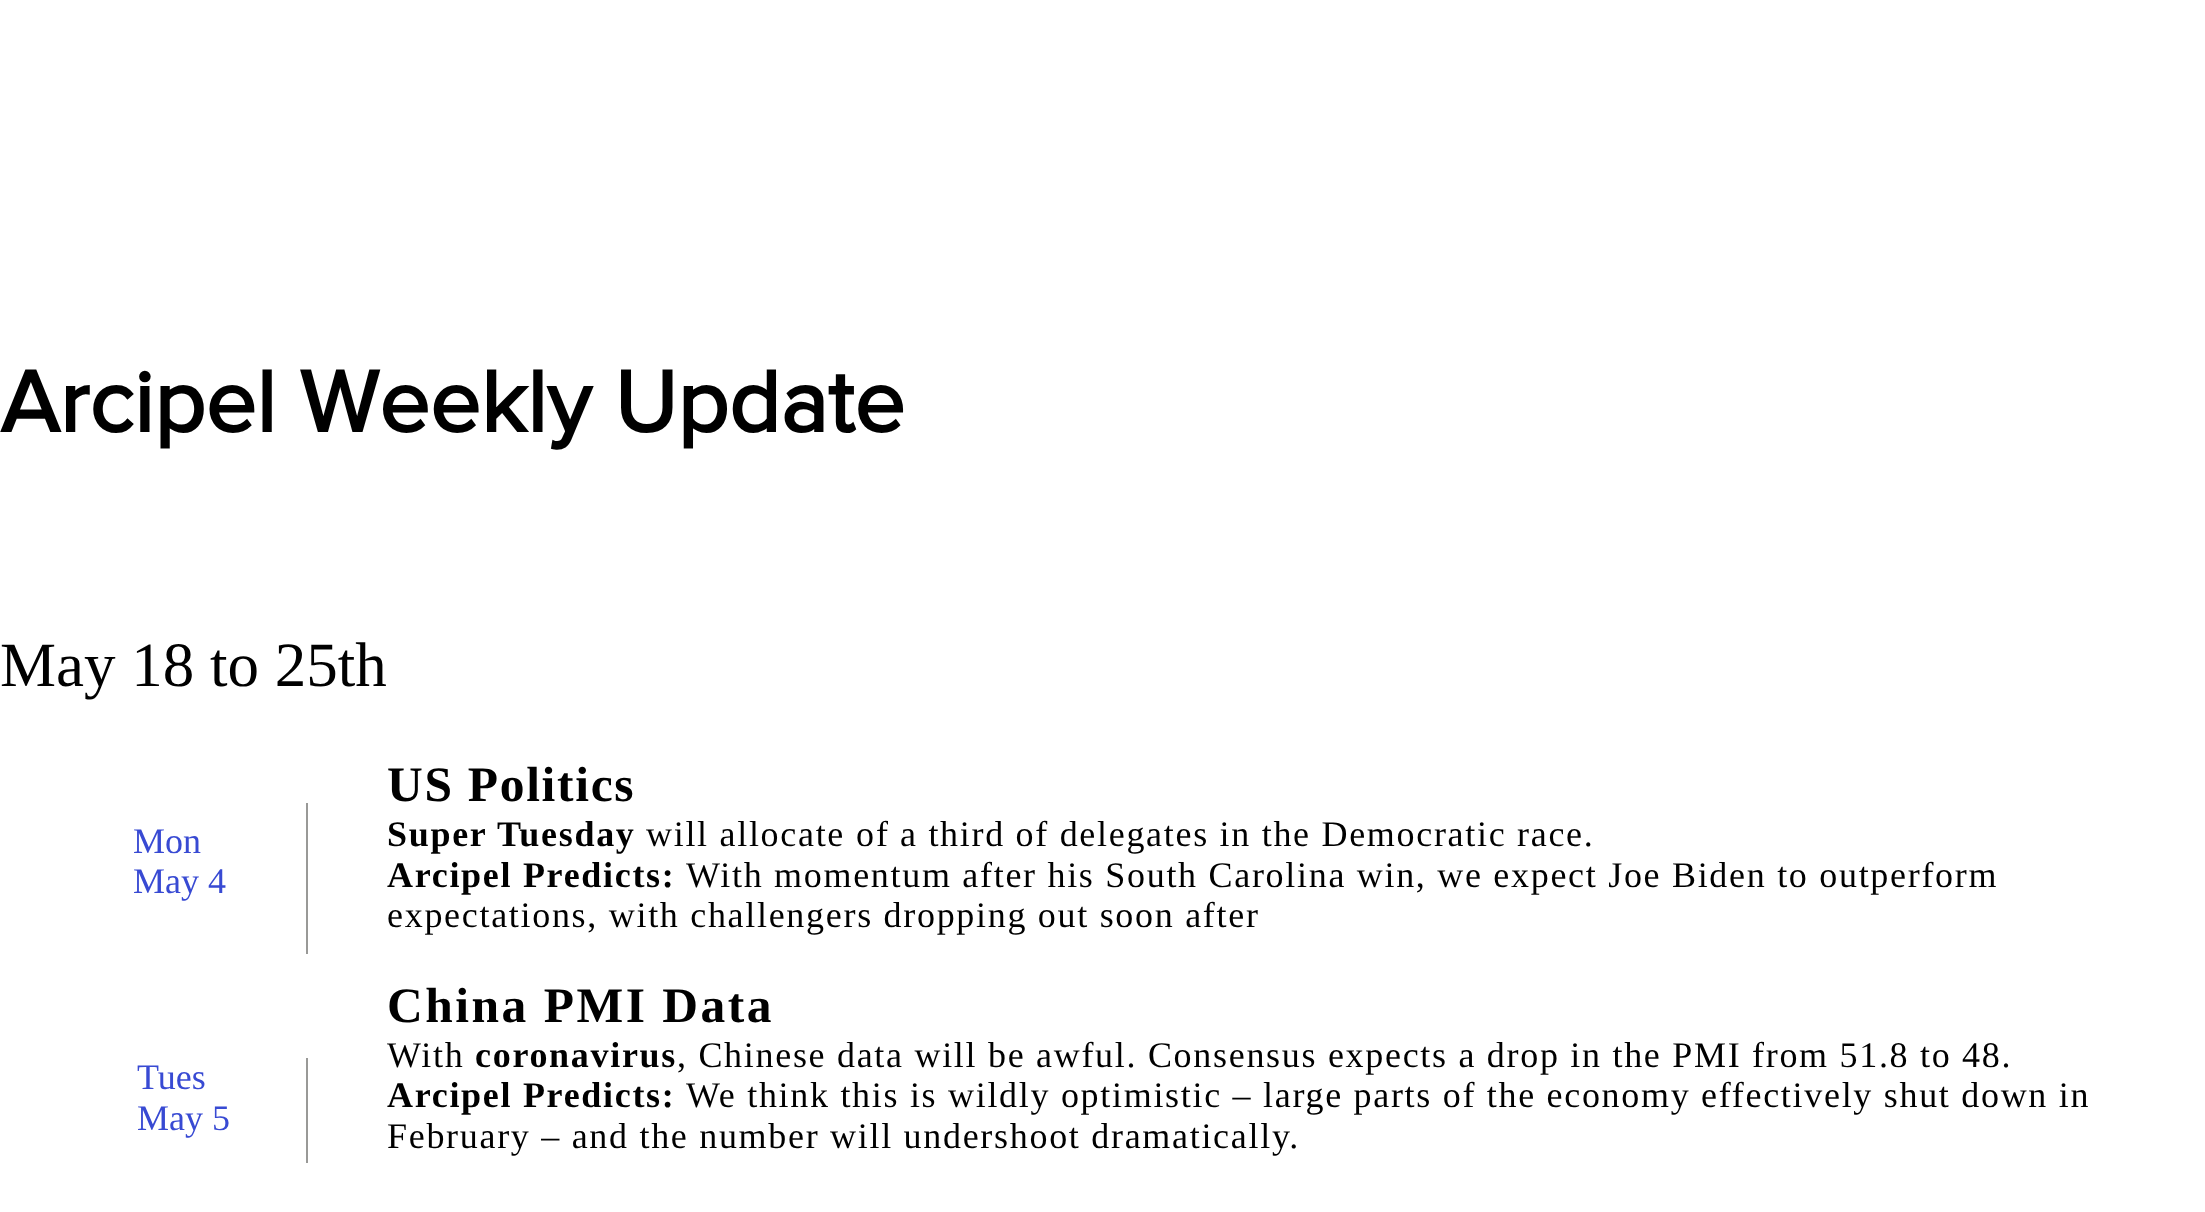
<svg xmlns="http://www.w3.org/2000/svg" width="2205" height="1212">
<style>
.a{font:bold 90px 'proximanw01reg';fill:#000}
.b{font:63px Liberation Serif;fill:#000}
.c{font:36px Liberation Serif;fill:#384ad3}
.d{font:bold 49.5px Liberation Serif;letter-spacing:1.7px;fill:#000}
.e{font:bold 36px Liberation Serif;letter-spacing:1.7px;fill:#000}
.f{font:36px Liberation Serif;letter-spacing:1.7px;fill:#000}
.g{font:36px Liberation Serif;letter-spacing:2px;fill:#000}
.h{font:bold 49.5px Liberation Serif;letter-spacing:2.5px;fill:#000}
</style>
<rect width="100%" height="100%" fill="#fff"/>
<path fill="#999997" d="M306 803h2v151H306z"/>
<path fill="#999997" d="M306 1058h2v105H306z"/>
<text class="a" x="0" y="432">Arcipel Weekly Update</text>
<text class="b" x="0" y="686">May 18 to 25th</text>
<text class="c" x="133" y="853">Mon</text>
<text class="c" x="133" y="893">May 4</text>
<text class="d" x="387" y="801">US Politics</text>
<text class="e" x="387" y="846">Super Tuesday</text>
<text class="f" x="646" y="846">will allocate</text>
<text class="g" x="856" y="846">of</text>
<text class="f" x="900" y="846">a third of delegates in the Democratic race.</text>
<text class="e" x="387" y="887">Arcipel Predicts:</text>
<text class="f" x="686" y="887">With momentum after his South Carolina win, we expect Joe Biden to outperform</text>
<text class="f" x="387" y="927">expectations, with challengers dropping out soon after</text>
<text class="h" x="387" y="1022">China PMI Data</text>
<text class="f" x="387" y="1067">With</text>
<text class="e" x="475" y="1067">coronavirus</text>
<text class="f" x="677" y="1067">, Chinese data will be awful. Consensus expects a drop in the PMI from 51.8 to 48.</text>
<text class="e" x="387" y="1107">Arcipel Predicts:</text>
<text class="f" x="686" y="1107">We think this is wildly optimistic – large parts of the economy effectively shut down in</text>
<text class="f" x="387" y="1148">February – and the number will undershoot dramatically.</text>
<text class="c" x="137" y="1089">Tues</text>
<text class="c" x="137" y="1130">May 5</text>
</svg>
